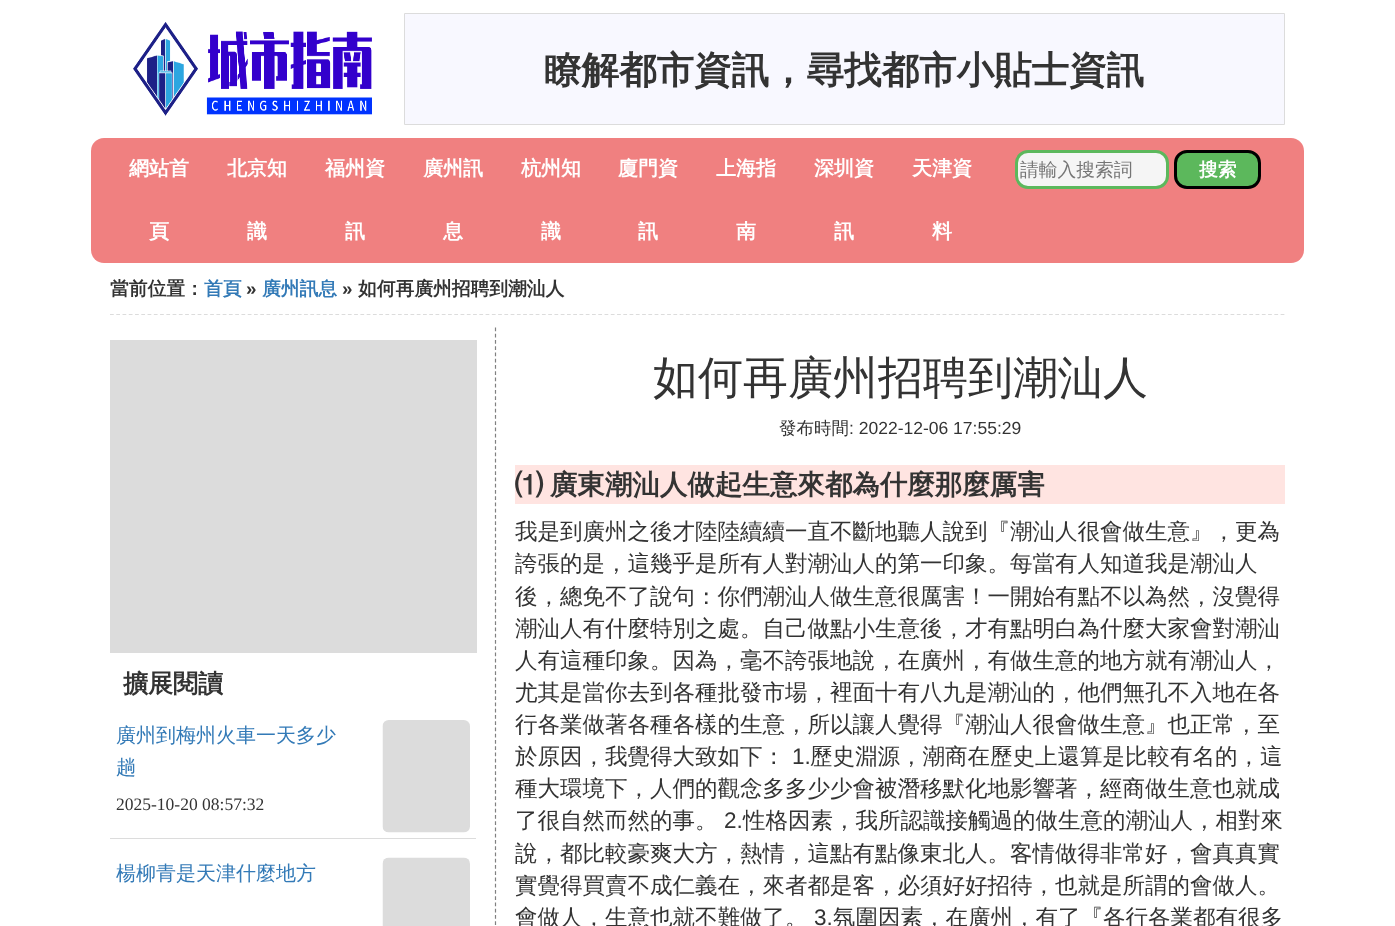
<svg xmlns="http://www.w3.org/2000/svg" width="1395" height="926">
<style>
.a{font:bold 37.5px WenQuanYi Zen Hei;fill:#333}
.b{font:bold 20px WenQuanYi Zen Hei;fill:#fff}
.c{font:500 18.75px WenQuanYi Zen Hei;fill:#757575}
.d{font:bold 18.75px WenQuanYi Zen Hei;fill:#fff}
.e{font:bold 18.75px WenQuanYi Zen Hei;fill:#333}
.f{font:bold 18.75px WenQuanYi Zen Hei;fill:#337ab7}
.g{font:bold 18.75px Liberation Sans;fill:#333}
.h{font:bold 25px WenQuanYi Zen Hei;fill:#333}
.i{font:500 20px WenQuanYi Zen Hei;fill:#337ab7}
.j{font:17.5px Liberation Serif;fill:#333}
.k{font:500 45px WenQuanYi Zen Hei;fill:#333}
.l{font:500 17.5px WenQuanYi Zen Hei;fill:#333}
.m{font:17.5px Liberation Sans;fill:#333}
.n{font:bold 27.5px WenQuanYi Zen Hei;fill:#333}
.o{font:500 22.5px WenQuanYi Zen Hei;fill:#333}
.p{font:22.5px Liberation Sans;fill:#333}
</style>
<rect width="100%" height="100%" fill="#fff"/>
<image href="1.png" x="133" y="22" width="239" height="94"/>
<path fill="#f8f8ff" stroke="#dcdcdc" d="M404.5 13.5h880v111H404.5z"/>
<rect fill="#f08080" x="91" y="138" width="1213" height="125" rx="13"/>
<rect fill="#f5f5f5" stroke="#5cb85c" stroke-width="3" x="1016.5" y="151.5" width="151" height="36" rx="11.5"/>
<rect fill="#5cb85c" stroke="#000" stroke-width="3" x="1175.5" y="151.5" width="84" height="36" rx="11.5"/>
<path fill="none" stroke="#dcdcdc" stroke-width="1.2" stroke-dasharray="3.75 2.51" d="M110 314.5h1175"/>
<path fill="#dcdcdc" d="M110 340h367v313H110z"/>
<path fill="#dcdcdc" d="M110 838h366v1H110z"/>
<image href="2.png" x="382" y="720" width="88" height="113"/>
<image href="3.png" x="382" y="857" width="88" height="69"/>
<path fill="none" stroke="#808080" stroke-width="1.2" stroke-dasharray="3.75 2.5" d="M495.5 327.5v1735"/>
<path fill="#ffe4e1" d="M515 465h770v39H515z"/>
<text class="a" x="544" y="83">瞭解都市資訊，尋找都市小貼士資訊</text>
<text class="b" x="129" y="175">網站首</text>
<text class="b" x="149" y="238">頁</text>
<text class="b" x="227" y="175">北京知</text>
<text class="b" x="247" y="238">識</text>
<text class="b" x="325" y="175">福州資</text>
<text class="b" x="345" y="238">訊</text>
<text class="b" x="423" y="175">廣州訊</text>
<text class="b" x="443" y="238">息</text>
<text class="b" x="521" y="175">杭州知</text>
<text class="b" x="541" y="238">識</text>
<text class="b" x="618" y="175">廈門資</text>
<text class="b" x="638" y="238">訊</text>
<text class="b" x="716" y="175">上海指</text>
<text class="b" x="736" y="238">南</text>
<text class="b" x="814" y="175">深圳資</text>
<text class="b" x="834" y="238">訊</text>
<text class="b" x="912" y="175">天津資</text>
<text class="b" x="932" y="238">料</text>
<text class="c" x="1020" y="176">請輸入搜索詞</text>
<text class="d" x="1199" y="176">搜索</text>
<text class="e" x="110" y="295">當前位置：</text>
<text class="f" x="204" y="295">首頁</text>
<text class="g" x="246" y="295">»</text>
<text class="f" x="262" y="295">廣州訊息</text>
<text class="g" x="342" y="295">»</text>
<text class="e" x="358" y="295">如何再廣州招聘到潮汕人</text>
<text class="h" x="123" y="692">擴展閱讀</text>
<text class="i" x="116" y="742">廣州到梅州火車一天多少</text>
<text class="i" x="116" y="774">趟</text>
<text class="j" x="116" y="810">2025-10-20 08:57:32</text>
<text class="i" x="116" y="880">楊柳青是天津什麼地方</text>
<text class="k" x="653" y="393">如何再廣州招聘到潮汕人</text>
<text class="l" x="779" y="434">發布時間</text>
<text class="m" x="849" y="434">: 2022-12-06 17:55:29</text>
<text class="n" x="515" y="494" word-spacing="-1">⑴ 廣東潮汕人做起生意來都為什麼那麼厲害</text>
<text class="o" x="515" y="539">我是到廣州之後才陸陸續續一直不斷地聽人說到『潮汕人很會做生意』，更為</text>
<text class="o" x="515" y="571">誇張的是，這幾乎是所有人對潮汕人的第一印象。每當有人知道我是潮汕人</text>
<text class="o" x="515" y="604">後，總免不了說句：你們潮汕人做生意很厲害！一開始有點不以為然，沒覺得</text>
<text class="o" x="515" y="636">潮汕人有什麼特別之處。自己做點小生意後，才有點明白為什麼大家會對潮汕</text>
<text class="o" x="515" y="668">人有這種印象。因為，毫不誇張地說，在廣州，有做生意的地方就有潮汕人，</text>
<text class="o" x="515" y="700">尤其是當你去到各種批發市場，裡面十有八九是潮汕的，他們無孔不入地在各</text>
<text class="o" x="515" y="732">行各業做著各種各樣的生意，所以讓人覺得『潮汕人很會做生意』也正常，至</text>
<text class="o" x="515" y="764">於原因，我覺得大致如下：</text>
<text class="p" x="792" y="764">1.</text>
<text class="o" x="810" y="764">歷史淵源，潮商在歷史上還算是比較有名的，這</text>
<text class="o" x="515" y="796">種大環境下，人們的觀念多多少少會被潛移默化地影響著，經商做生意也就成</text>
<text class="o" x="515" y="828">了很自然而然的事。</text>
<text class="p" x="724" y="828">2.</text>
<text class="o" x="743" y="828">性格因素，我所認識接觸過的做生意的潮汕人，相對來</text>
<text class="o" x="515" y="861">說，都比較豪爽大方，熱情，這點有點像東北人。客情做得非常好，會真真實</text>
<text class="o" x="515" y="893">實覺得買賣不成仁義在，來者都是客，必須好好招待，也就是所謂的會做人。</text>
<text class="o" x="515" y="925">會做人，生意也就不難做了。</text>
<text class="p" x="814" y="925">3.</text>
<text class="o" x="833" y="925">氛圍因素，在廣州，有了『各行各業都有很多</text>
</svg>
